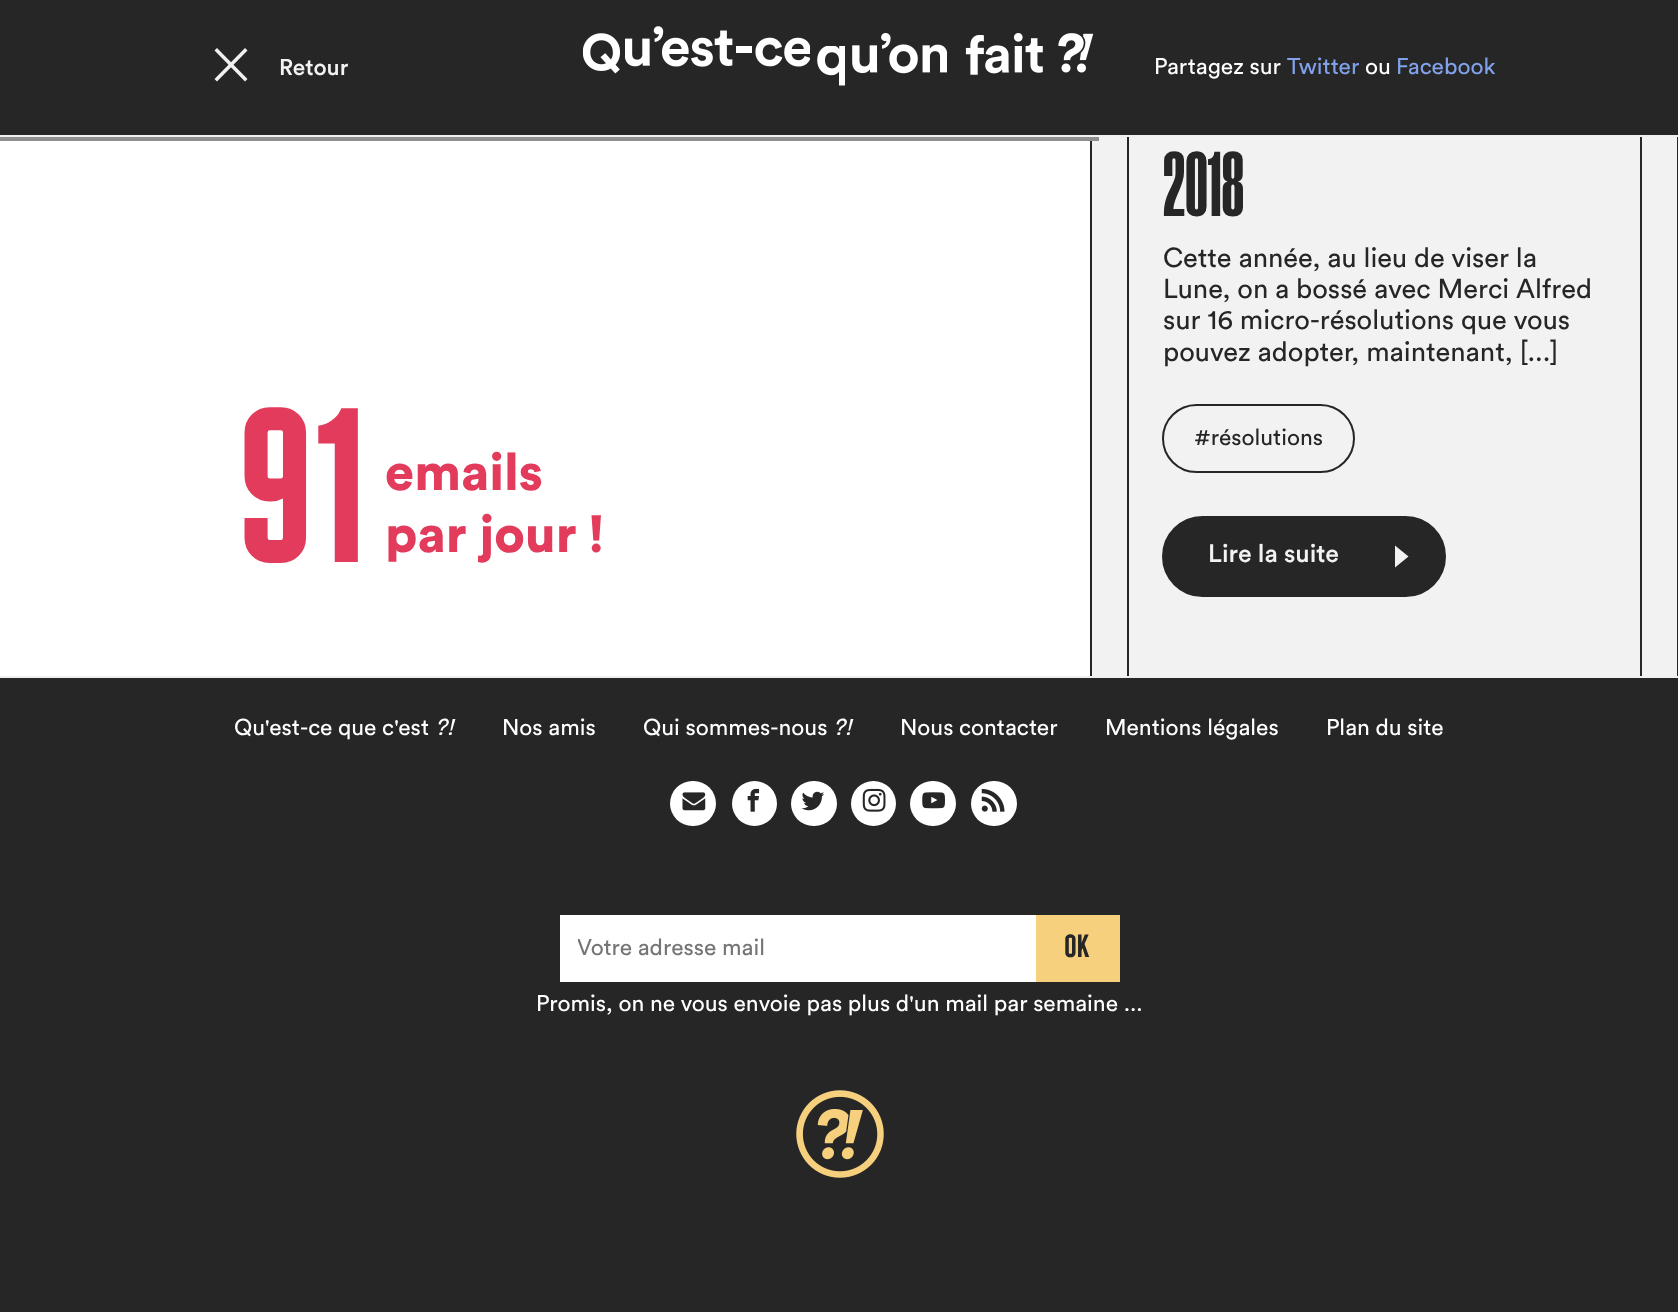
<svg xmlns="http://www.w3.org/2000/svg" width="1678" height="1312">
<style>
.a{font:500 22.75px Circular;fill:#f2f2f2}
.b{font:22.75px Circular;fill:#fff}
.c{font:22.75px Circular;fill:#81a2ea}
.d{font:bold 68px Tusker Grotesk;fill:#262626}
.e{font:27.25px Circular;fill:#262626}
.f{font:22.75px Circular;fill:#262626}
.g{font:500 25px Circular;fill:#f2f2f2}
.h{font:italic 22.75px Circular;fill:#fff}
.i{font:22.75px Circular;fill:#757575}
.j{font:bold 32px 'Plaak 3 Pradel';fill:#262626}
</style>
<defs>
<clipPath id="clip1"><path d="M578 935h441v28H578z"/></clipPath>
</defs>
<rect width="100%" height="100%" fill="#262626"/>
<path fill="#fff" d="M0 141h1090v535H0z"/>
<path fill="#f0f0f0" d="M0 135h1678v2H0z"/>
<path fill="#f0f0f0" d="M217 48l30.5 31l-2.5 2.5l-30.5-31z"/>
<path fill="#f0f0f0" d="M214.5 79l30.5-31l2.5 2.5l-30.5 31z"/>
<image href="1.png" x="583" y="33" width="37" height="41"/>
<image href="2.png" x="625" y="26" width="185" height="41"/>
<image href="3.png" x="817" y="46" width="28" height="40"/>
<image href="4.png" x="852" y="33" width="95" height="41"/>
<image href="5.png" x="965" y="35" width="19" height="40"/>
<image href="6.png" x="985" y="33" width="109" height="41"/>
<path fill="#f2f2f2" d="M1092 137h585v539H1092z"/>
<path fill="#8e8e8e" d="M0 137h1099v4H0z"/>
<image href="7.png" x="244" y="407" width="357" height="156"/>
<path fill="#262626" d="M1127 137h2v539H1127z"/>
<rect fill="none" stroke="#262626" stroke-width="2" x="1163" y="405" width="191" height="67" rx="33.5"/>
<path fill="#262626" d="M1640 137h2v539H1640z"/>
<rect fill="#262626" stroke="#262626" stroke-width="2" x="1163" y="517" width="282" height="79" rx="39.5"/>
<path fill="#f2f2f2" d="M1395 545.5l13.5 11l-13.5 11z"/>
<path fill="#f0f0f0" d="M0 676h1678v2H0z"/>
<rect fill="#fff" x="670" y="781" width="46" height="45" rx="22.5"/>
<image href="8.png" x="682" y="792" width="24" height="19"/>
<circle fill="#fff" cx="754.5" cy="803.5" r="22.5"/>
<image href="9.png" x="747" y="788" width="13" height="24"/>
<rect fill="#fff" x="791" y="781" width="46" height="45" rx="22.5"/>
<image href="10.png" x="801" y="791" width="24" height="20"/>
<circle fill="#fff" cx="873.5" cy="803.5" r="22.5"/>
<image href="11.png" x="862" y="788" width="24" height="24"/>
<rect fill="#fff" x="910" y="781" width="46" height="45" rx="22.5"/>
<image href="12.png" x="922" y="792" width="23" height="17"/>
<rect fill="#fff" x="971" y="781" width="46" height="45" rx="22.5"/>
<image href="13.png" x="981" y="788" width="24" height="24"/>
<path fill="#fff" d="M560 915h476v67H560z"/>
<path fill="#f7d07e" d="M1036 915h84v67H1036z"/>
<image href="14.png" x="796" y="1090" width="88" height="88"/>
<text class="a" x="279" y="75">Retour</text>
<text class="b" x="1154" y="74">Partagez sur</text>
<text class="c" x="1287" y="74">Twitter</text>
<text class="b" x="1365" y="74">ou</text>
<text class="c" x="1396" y="74">Facebook</text>
<text class="d" x="1163" y="216">2018</text>
<text class="e" x="1163" y="267">Cette année, au lieu de viser la</text>
<text class="e" x="1163" y="298">Lune, on a bossé avec Merci Alfred</text>
<text class="e" x="1163" y="329">sur 16 micro-résolutions que vous</text>
<text class="e" x="1163" y="361">pouvez adopter, maintenant, [...]</text>
<text class="f" x="1194" y="445">#résolutions</text>
<text class="g" x="1208" y="562">Lire la suite</text>
<text class="b" x="234" y="735">Qu'est-ce que c'est</text>
<text class="h" x="435" y="735">?!</text>
<text class="b" x="502" y="735">Nos amis</text>
<text class="b" x="643" y="735">Qui sommes-nous</text>
<text class="h" x="833" y="735">?!</text>
<text class="b" x="900" y="735">Nous contacter</text>
<text class="b" x="1105" y="735">Mentions légales</text>
<text class="b" x="1326" y="735">Plan du site</text>
<g clip-path="url(#clip1)">
<text class="i" x="577" y="955">Votre adresse mail</text>
</g>
<text class="j" x="1064" y="957">OK</text>
<text class="b" x="536" y="1011">Promis, on ne vous envoie pas plus d'un mail par semaine ...</text>
</svg>
